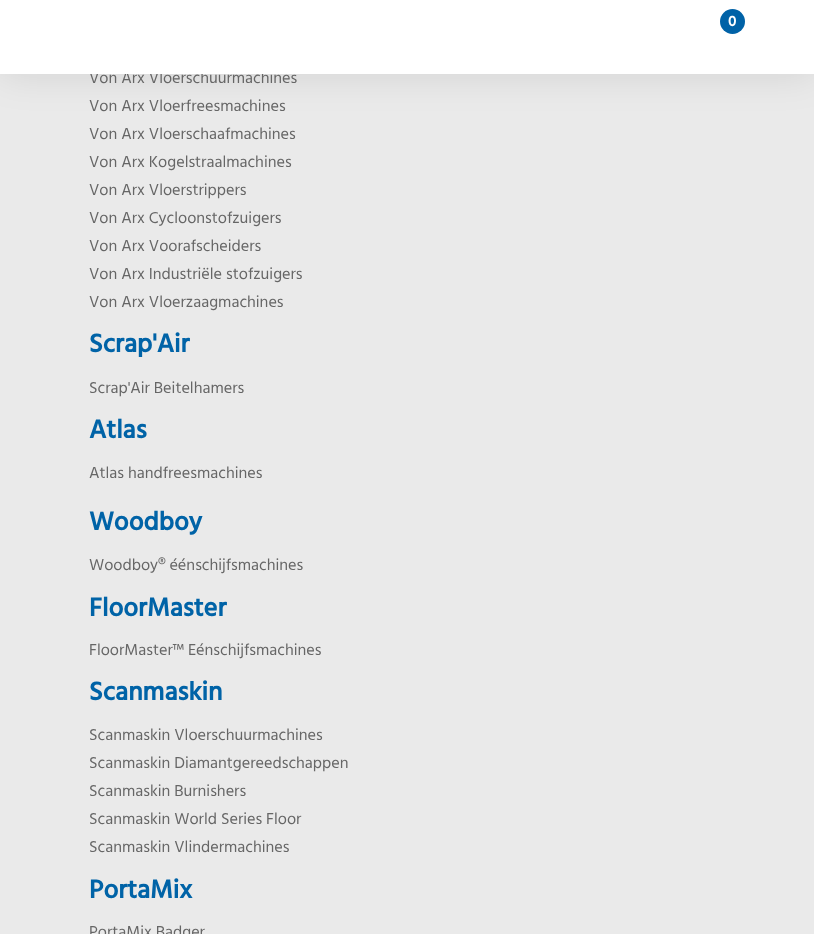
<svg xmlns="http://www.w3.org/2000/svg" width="814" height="934">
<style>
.a{font:16.25px Hind;fill:#666}
.b{font:bold 15px Hind;fill:#fff}
.c{font:bold 26.25px Hind;fill:#0063a7}
</style>
<rect width="100%" height="100%" fill="#eaeaea"/>
<path fill="#0000001a" filter="blur(19px)" d="M0 0h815v74H0z"/>
<text class="a" x="89" y="83">Von Arx Vloerschuurmachines</text>
<path fill="#fff" d="M0 0h814v74H0z"/>
<circle fill="#0062a7" cx="732.5" cy="21.5" r="12.5"/>
<text class="b" x="728" y="26">0</text>
<text class="a" x="89" y="111">Von Arx Vloerfreesmachines</text>
<text class="a" x="89" y="139">Von Arx Vloerschaafmachines</text>
<text class="a" x="89" y="167">Von Arx Kogelstraalmachines</text>
<text class="a" x="89" y="195">Von Arx Vloerstrippers</text>
<text class="a" x="89" y="223">Von Arx Cycloonstofzuigers</text>
<text class="a" x="89" y="251">Von Arx Voorafscheiders</text>
<text class="a" x="89" y="279">Von Arx Industriële stofzuigers</text>
<text class="a" x="89" y="307">Von Arx Vloerzaagmachines</text>
<text class="c" x="89" y="352">Scrap'Air</text>
<text class="a" x="89" y="393">Scrap'Air Beitelhamers</text>
<text class="c" x="89" y="438">Atlas</text>
<text class="a" x="89" y="478">Atlas handfreesmachines</text>
<text class="c" x="89" y="530">Woodboy</text>
<text class="a" x="89" y="570">Woodboy® éénschijfsmachines</text>
<text class="c" x="89" y="616">FloorMaster</text>
<text class="a" x="89" y="655">FloorMaster™ Eénschijfsmachines</text>
<text class="c" x="89" y="700">Scanmaskin</text>
<text class="a" x="89" y="740">Scanmaskin Vloerschuurmachines</text>
<text class="a" x="89" y="768">Scanmaskin Diamantgereedschappen</text>
<text class="a" x="89" y="796">Scanmaskin Burnishers</text>
<text class="a" x="89" y="824">Scanmaskin World Series Floor</text>
<text class="a" x="89" y="852">Scanmaskin Vlindermachines</text>
<text class="c" x="89" y="898">PortaMix</text>
<text class="a" x="89" y="937">PortaMix Badger</text>
</svg>
